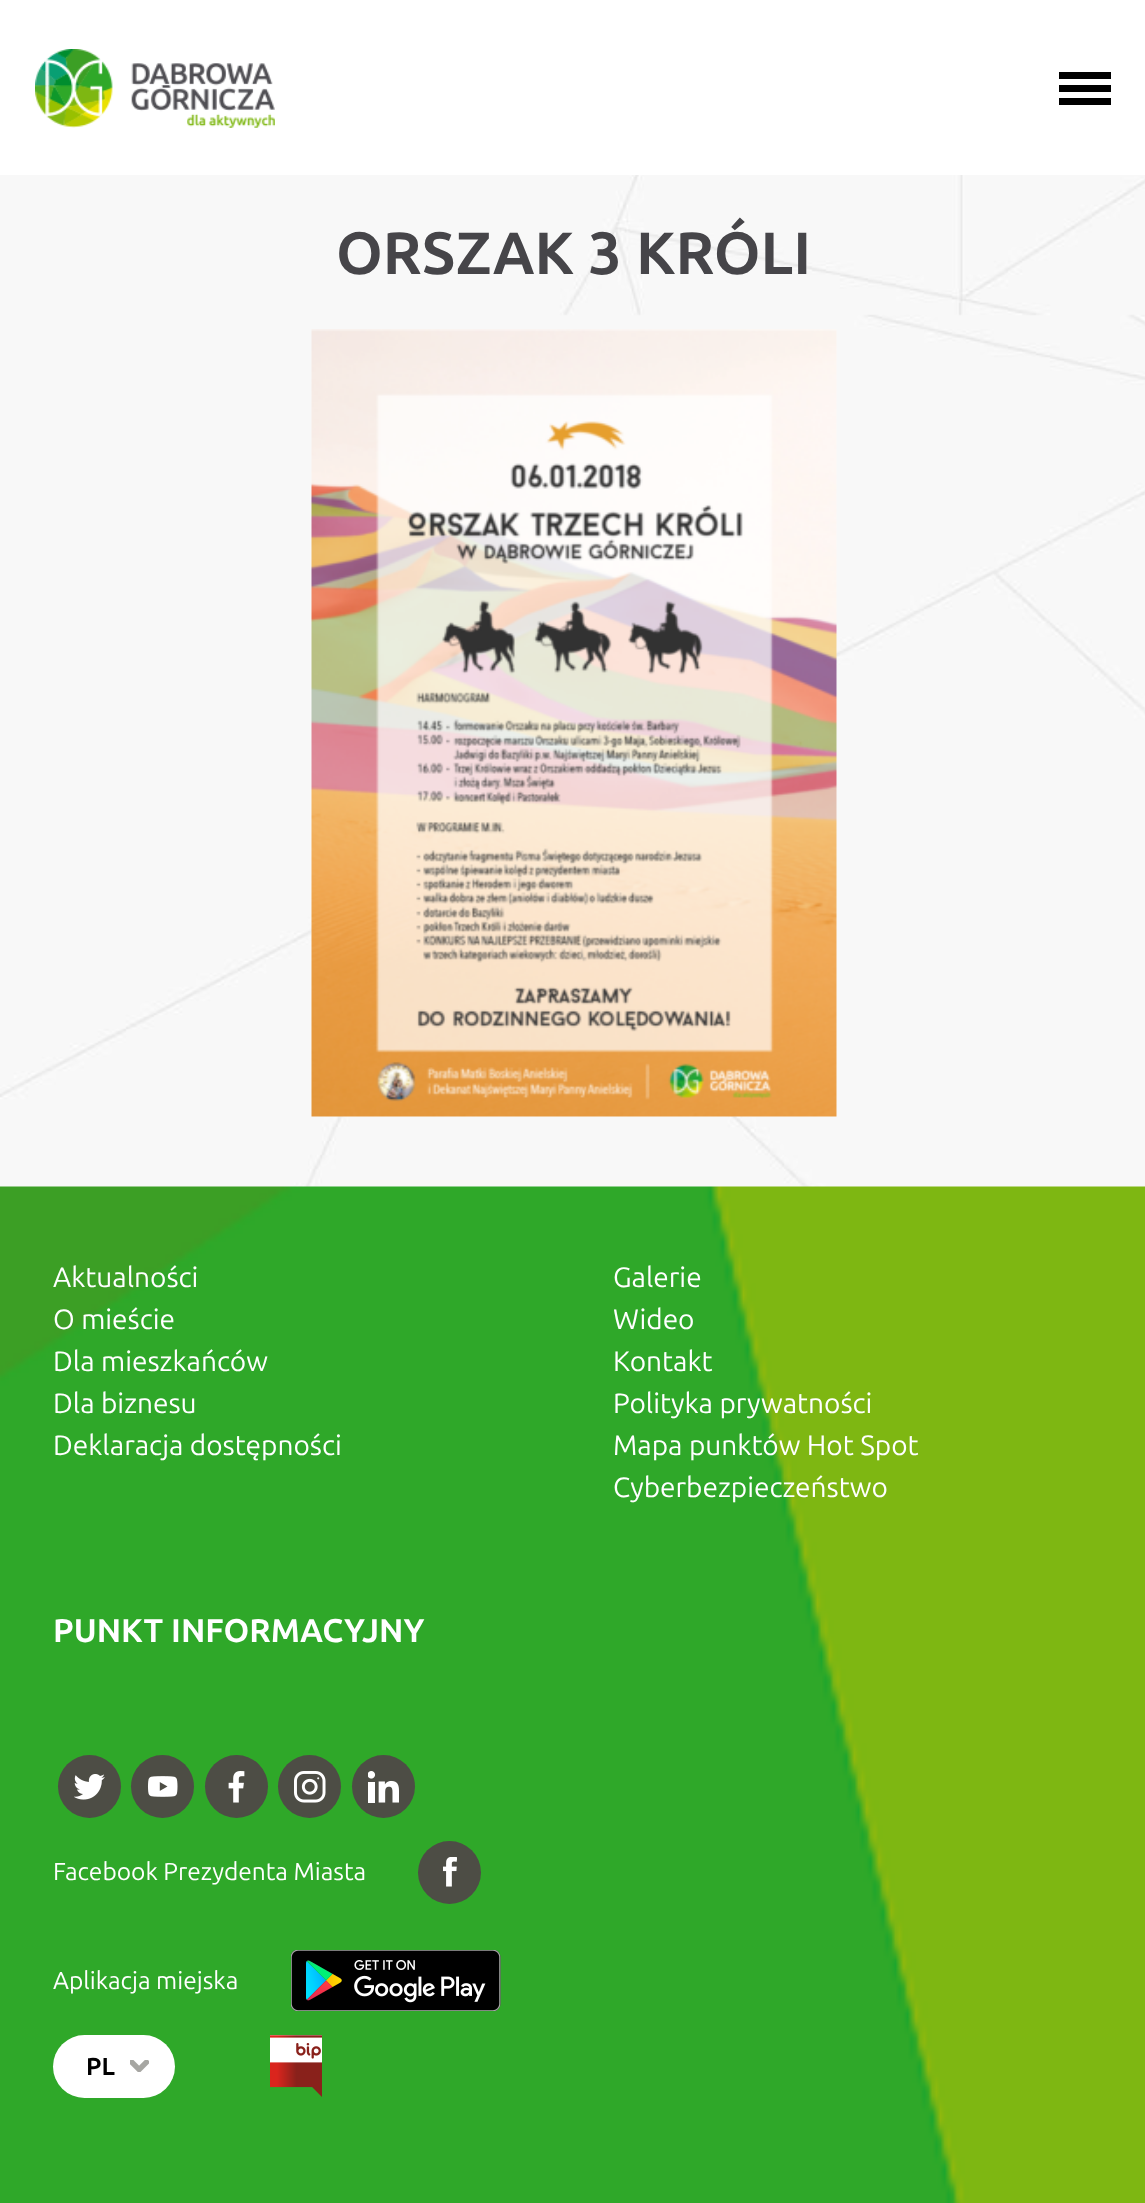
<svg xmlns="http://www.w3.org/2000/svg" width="1145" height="2203">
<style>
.a{font:bold 59.5px Ubuntu;fill:#464549}
.b{font:28px Ubuntu;fill:#fff}
.c{font:bold 32.75px Ubuntu;fill:#fff}
.d{font:24.5px Ubuntu;fill:#fff}
.e{font:bold 24.5px Ubuntu;fill:#000}
</style>
<rect width="100%" height="100%" fill="#fff"/>
<image href="1.png" x="0" y="175" width="1145" height="1012"/>
<image href="2.png" x="35" y="49" width="240" height="79"/>
<path fill="#000" d="M1111 105h-52v-7h52zm0-13h-52v-7h52zm0-13h-52v-7h52z"/>
<image href="3.png" x="311" y="329" width="526" height="788"/>
<image href="4.png" x="0" y="1186" width="1145" height="1017"/>
<circle fill="#4d4d45" cx="89.5" cy="1786.5" r="31.5"/>
<image href="5.png" x="74" y="1774" width="31" height="26"/>
<circle fill="#4d4d45" cx="162.5" cy="1786.5" r="31.5"/>
<image href="6.png" x="147" y="1776" width="31" height="21"/>
<circle fill="#4d4d45" cx="236.5" cy="1786.5" r="31.5"/>
<image href="7.png" x="228" y="1771" width="17" height="32"/>
<circle fill="#4d4d45" cx="309.5" cy="1786.5" r="31.5"/>
<image href="8.png" x="294" y="1771" width="32" height="32"/>
<circle fill="#4d4d45" cx="383.5" cy="1786.5" r="31.5"/>
<image href="9.png" x="368" y="1771" width="31" height="32"/>
<circle fill="#4d4d45" cx="449.5" cy="1872.5" r="31.5"/>
<image href="10.png" x="443" y="1857" width="14" height="30"/>
<image href="11.png" x="291" y="1950" width="210" height="61"/>
<rect fill="#fff" x="53" y="2035" width="122" height="63" rx="31.5"/>
<image href="12.png" x="130" y="2060" width="19" height="12"/>
<image href="13.png" x="270" y="2035" width="52" height="62"/>
<text class="a" x="336" y="274">ORSZAK 3 KRÓLI</text>
<text class="b" x="53" y="1287">Aktualności</text>
<text class="b" x="53" y="1329">O mieście</text>
<text class="b" x="53" y="1371">Dla mieszkańców</text>
<text class="b" x="53" y="1413">Dla biznesu</text>
<text class="b" x="53" y="1455">Deklaracja dostępności</text>
<text class="b" x="613" y="1287">Galerie</text>
<text class="b" x="613" y="1329">Wideo</text>
<text class="b" x="613" y="1371">Kontakt</text>
<text class="b" x="613" y="1413">Polityka prywatności</text>
<text class="b" x="613" y="1455">Mapa punktów Hot Spot</text>
<text class="b" x="613" y="1497">Cyberbezpieczeństwo</text>
<text class="c" x="53" y="1642">PUNKT INFORMACYJNY</text>
<text class="d" x="53" y="1880">Facebook Prezydenta Miasta</text>
<text class="d" x="53" y="1989">Aplikacja miejska</text>
<text class="e" x="86" y="2075">PL</text>
</svg>
